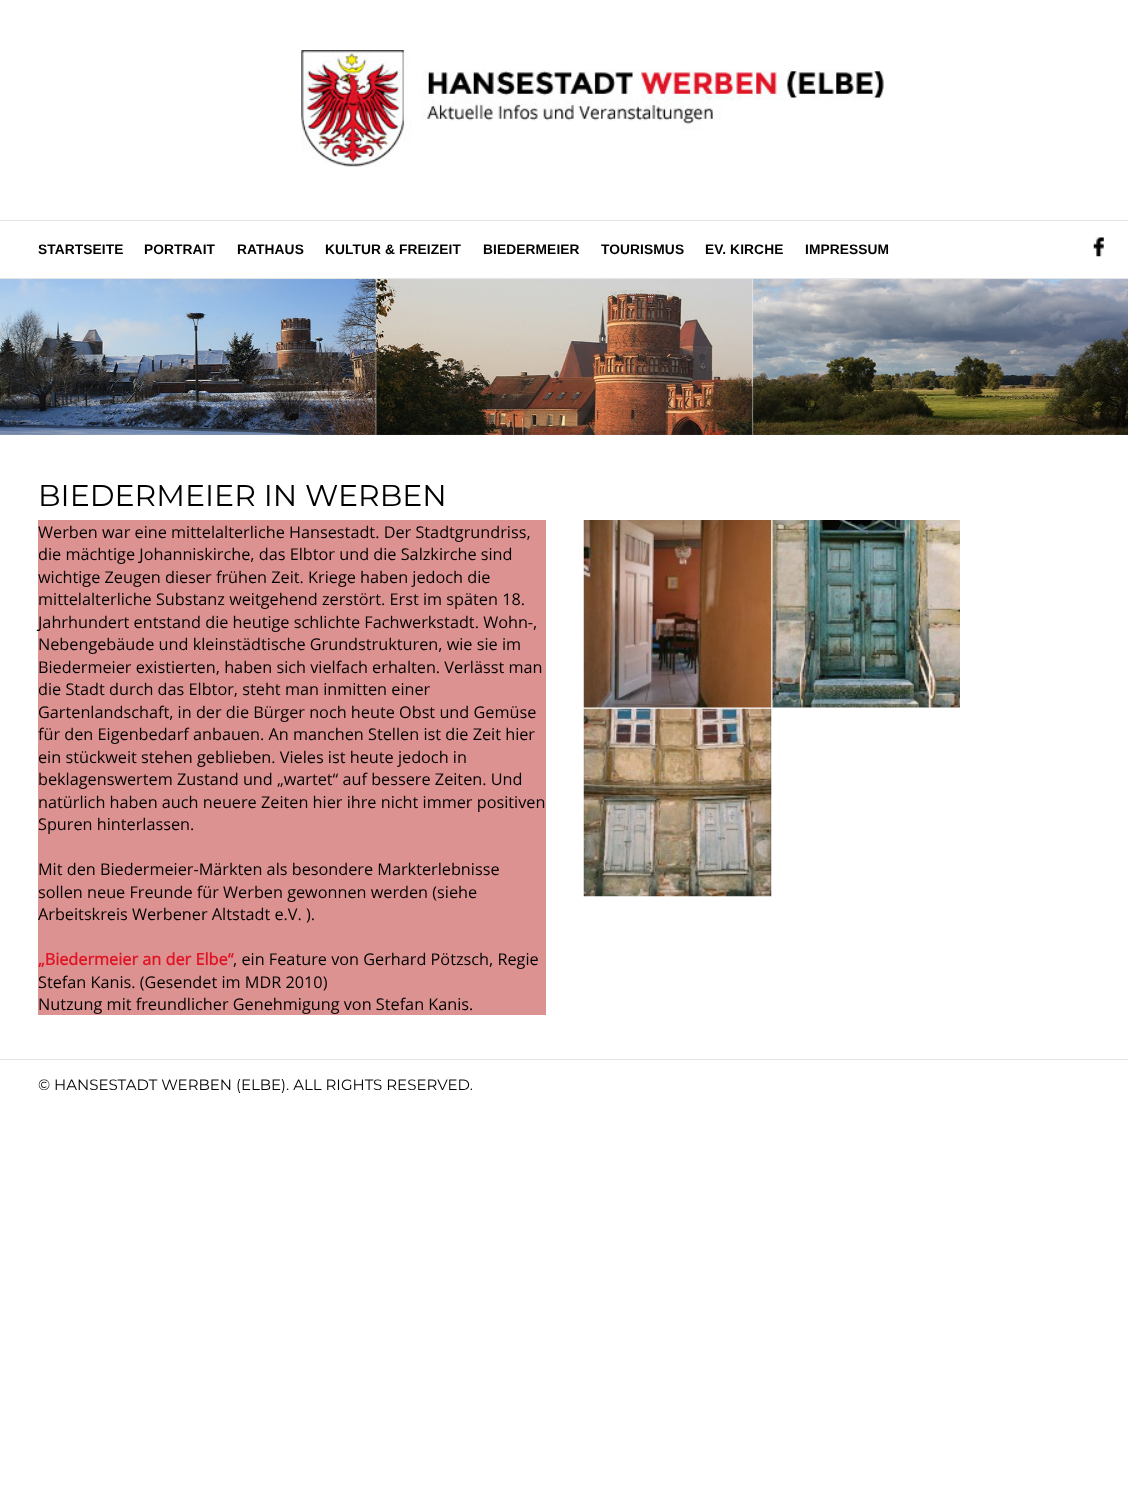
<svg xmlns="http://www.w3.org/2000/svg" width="1128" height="1487">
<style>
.a{font:bold 13.75px Liberation Sans;letter-spacing:0.1px;fill:#000}
.b{font:30px Montserrat;fill:#000}
.c{font:16.25px Open Sans;fill:#000}
.d{font:bold 16.25px Open Sans;fill:#df1526}
.e{font:15px Montserrat;fill:#000}
</style>
<rect width="100%" height="100%" fill="#fff"/>
<image href="1.png" x="301" y="50" width="583" height="117"/>
<path fill="#e5e5e5" d="M0 220h1128v1H0z"/>
<path fill="#e5e5e5" d="M0 278h1128v1H0z"/>
<image href="2.png" x="1093" y="237" width="11" height="20"/>
<image href="3.png" x="0" y="279" width="1128" height="156"/>
<path fill="#dd9292" d="M38 520h508v495H38z"/>
<image href="4.png" x="583" y="520" width="189" height="188"/>
<image href="5.png" x="772" y="520" width="188" height="188"/>
<image href="6.png" x="583" y="708" width="189" height="189"/>
<path fill="#e5e5e5" d="M0 1059h1128v1H0z"/>
<text class="a" x="38" y="254">STARTSEITE</text>
<text class="a" x="144" y="254">PORTRAIT</text>
<text class="a" x="237" y="254">RATHAUS</text>
<text class="a" x="325" y="254">KULTUR &amp; FREIZEIT</text>
<text class="a" x="483" y="254">BIEDERMEIER</text>
<text class="a" x="601" y="254">TOURISMUS</text>
<text class="a" x="705" y="254">EV. KIRCHE</text>
<text class="a" x="805" y="254">IMPRESSUM</text>
<text class="b" x="38" y="506">BIEDERMEIER IN WERBEN</text>
<text class="c" x="38" y="538">Werben war eine mittelalterliche Hansestadt. Der Stadtgrundriss,</text>
<text class="c" x="38" y="560">die mächtige Johanniskirche, das Elbtor und die Salzkirche sind</text>
<text class="c" x="38" y="583">wichtige Zeugen dieser frühen Zeit. Kriege haben jedoch die</text>
<text class="c" x="38" y="605">mittelalterliche Substanz weitgehend zerstört. Erst im späten 18.</text>
<text class="c" x="38" y="628">Jahrhundert entstand die heutige schlichte Fachwerkstadt. Wohn-,</text>
<text class="c" x="38" y="650">Nebengebäude und kleinstädtische Grundstrukturen, wie sie im</text>
<text class="c" x="38" y="673">Biedermeier existierten, haben sich vielfach erhalten. Verlässt man</text>
<text class="c" x="38" y="695">die Stadt durch das Elbtor, steht man inmitten einer</text>
<text class="c" x="38" y="718">Gartenlandschaft, in der die Bürger noch heute Obst und Gemüse</text>
<text class="c" x="38" y="740">für den Eigenbedarf anbauen. An manchen Stellen ist die Zeit hier</text>
<text class="c" x="38" y="763">ein stückweit stehen geblieben. Vieles ist heute jedoch in</text>
<text class="c" x="38" y="785">beklagenswertem Zustand und „wartet“ auf bessere Zeiten. Und</text>
<text class="c" x="38" y="808">natürlich haben auch neuere Zeiten hier ihre nicht immer positiven</text>
<text class="c" x="38" y="830">Spuren hinterlassen.</text>
<text class="c" x="38" y="875">Mit den Biedermeier-Märkten als besondere Markterlebnisse</text>
<text class="c" x="38" y="898">sollen neue Freunde für Werben gewonnen werden (siehe</text>
<text class="c" x="38" y="920">Arbeitskreis Werbener Altstadt e.V. ).</text>
<text class="d" x="38" y="965">„Biedermeier an der Elbe“</text>
<text class="c" x="233" y="965">, ein Feature von Gerhard Pötzsch, Regie</text>
<text class="c" x="38" y="988">Stefan Kanis. (Gesendet im MDR 2010)</text>
<text class="c" x="38" y="1010">Nutzung mit freundlicher Genehmigung von Stefan Kanis.</text>
<text class="e" x="38" y="1090">© HANSESTADT WERBEN (ELBE). ALL RIGHTS RESERVED.</text>
</svg>
